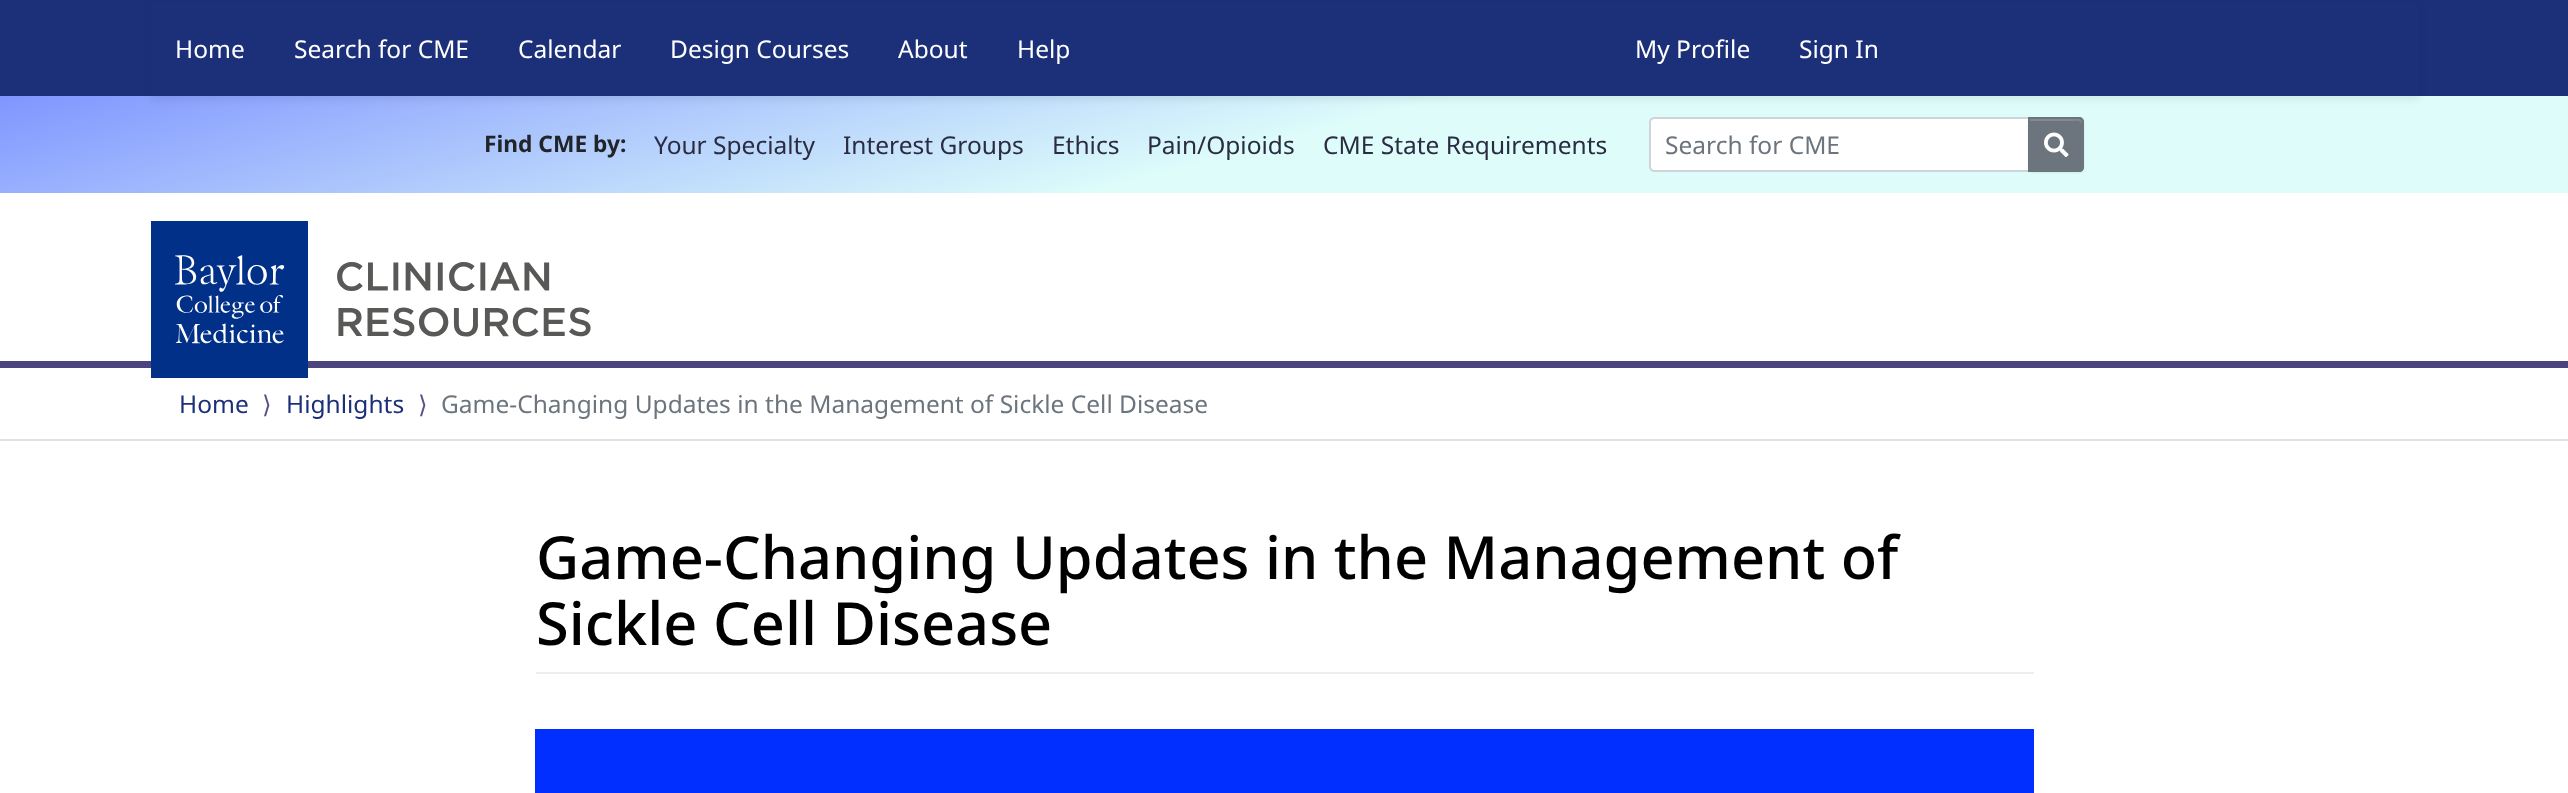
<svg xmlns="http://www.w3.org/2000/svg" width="2568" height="793">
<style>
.a{font:24.5px Noto Sans;fill:#fff}
.b{font:bold 22.75px Noto Sans;fill:#212529}
.c{font:24.5px Noto Sans;fill:#2a2c41}
.d{font:24.5px Noto Sans;fill:#6c757d}
.e{font:24.5px Noto Sans;fill:#1c3079}
.f{font:24.5px DejaVu Sans;fill:#5a5188}
.g{font:500 59.5px Noto Sans;fill:#000}
</style>
<defs>
<linearGradient id="g1" gradientUnits="userSpaceOnUse" x1="1186" y1="-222" x2="1383" y2="510"><stop offset="0" stop-color="#8096ff"/><stop offset="0.5" stop-color="#defdfa"/></linearGradient>
</defs>
<rect width="100%" height="100%" fill="#fff"/>
<path fill="#1c3079" d="M0 0h2568v96H0z"/>
<path fill="url(#g1)" d="M0 96h2568v97H0z"/>
<path fill="#00000012" filter="blur(3.5px)" d="M151 4h2268v96H151z"/>
<path fill="#1c3079" d="M151 2h2268v94H151z"/>
<path fill="#fff" stroke="#ced4da" stroke-width="2" d="M1654 118h375v53h-375c-2 0-4-2-4-4v-45c0-2 2-4 4-4z"/>
<rect fill="#00000012" filter="blur(1px)" x="2028" y="119" width="56" height="54" rx="5"/>
<path fill="#6c757d" d="M2028 117h51c3 0 5 2 5 5v45c0 3-2 5-5 5h-51z"/>
<path fill="#828a91" d="M2030 121h41c4 0 11-2 11 4v44c1-1 1-2 1-3v-43c0-2-2-4-4-4h-49z"/>
<path fill="none" stroke="#6c757d" stroke-width="2" d="M2029 118h50c2 0 4 2 4 4v45c0 2-2 4-4 4h-50z"/>
<image href="1.png" x="2044" y="132" width="25" height="25"/>
<path fill="#4c447f" d="M0 361h2568v7H0z"/>
<image href="2.png" x="151" y="221" width="440" height="157"/>
<path fill="#dee2e6" d="M0 439h2568v2H0z"/>
<path fill="#eee" d="M536 672h1498v2H536z"/>
<path fill="#002fff" d="M535 729h1499v64H535z"/>
<text class="a" x="175" y="58">Home</text>
<text class="a" x="294" y="58">Search for CME</text>
<text class="a" x="518" y="58">Calendar</text>
<text class="a" x="670" y="58">Design Courses</text>
<text class="a" x="898" y="58">About</text>
<text class="a" x="1017" y="58">Help</text>
<text class="a" x="1635" y="58">My Profile</text>
<text class="a" x="1799" y="58">Sign In</text>
<text class="b" x="484" y="152">Find CME by:</text>
<text class="c" x="654" y="154">Your Specialty</text>
<text class="c" x="843" y="154">Interest Groups</text>
<text class="c" x="1052" y="154">Ethics</text>
<text class="c" x="1147" y="154">Pain/Opioids</text>
<text class="c" x="1323" y="154">CME State Requirements</text>
<text class="d" x="1665" y="154">Search for CME</text>
<text class="e" x="179" y="413">Home</text>
<text class="f" x="262" y="413">⟩</text>
<text class="e" x="286" y="413">Highlights</text>
<text class="f" x="418" y="413">⟩</text>
<text class="d" x="441" y="413">Game-Changing Updates in the Management of Sickle Cell Disease</text>
<text class="g" x="536" y="579">Game-Changing Updates in the Management of</text>
<text class="g" x="536" y="645">Sickle Cell Disease</text>
</svg>
